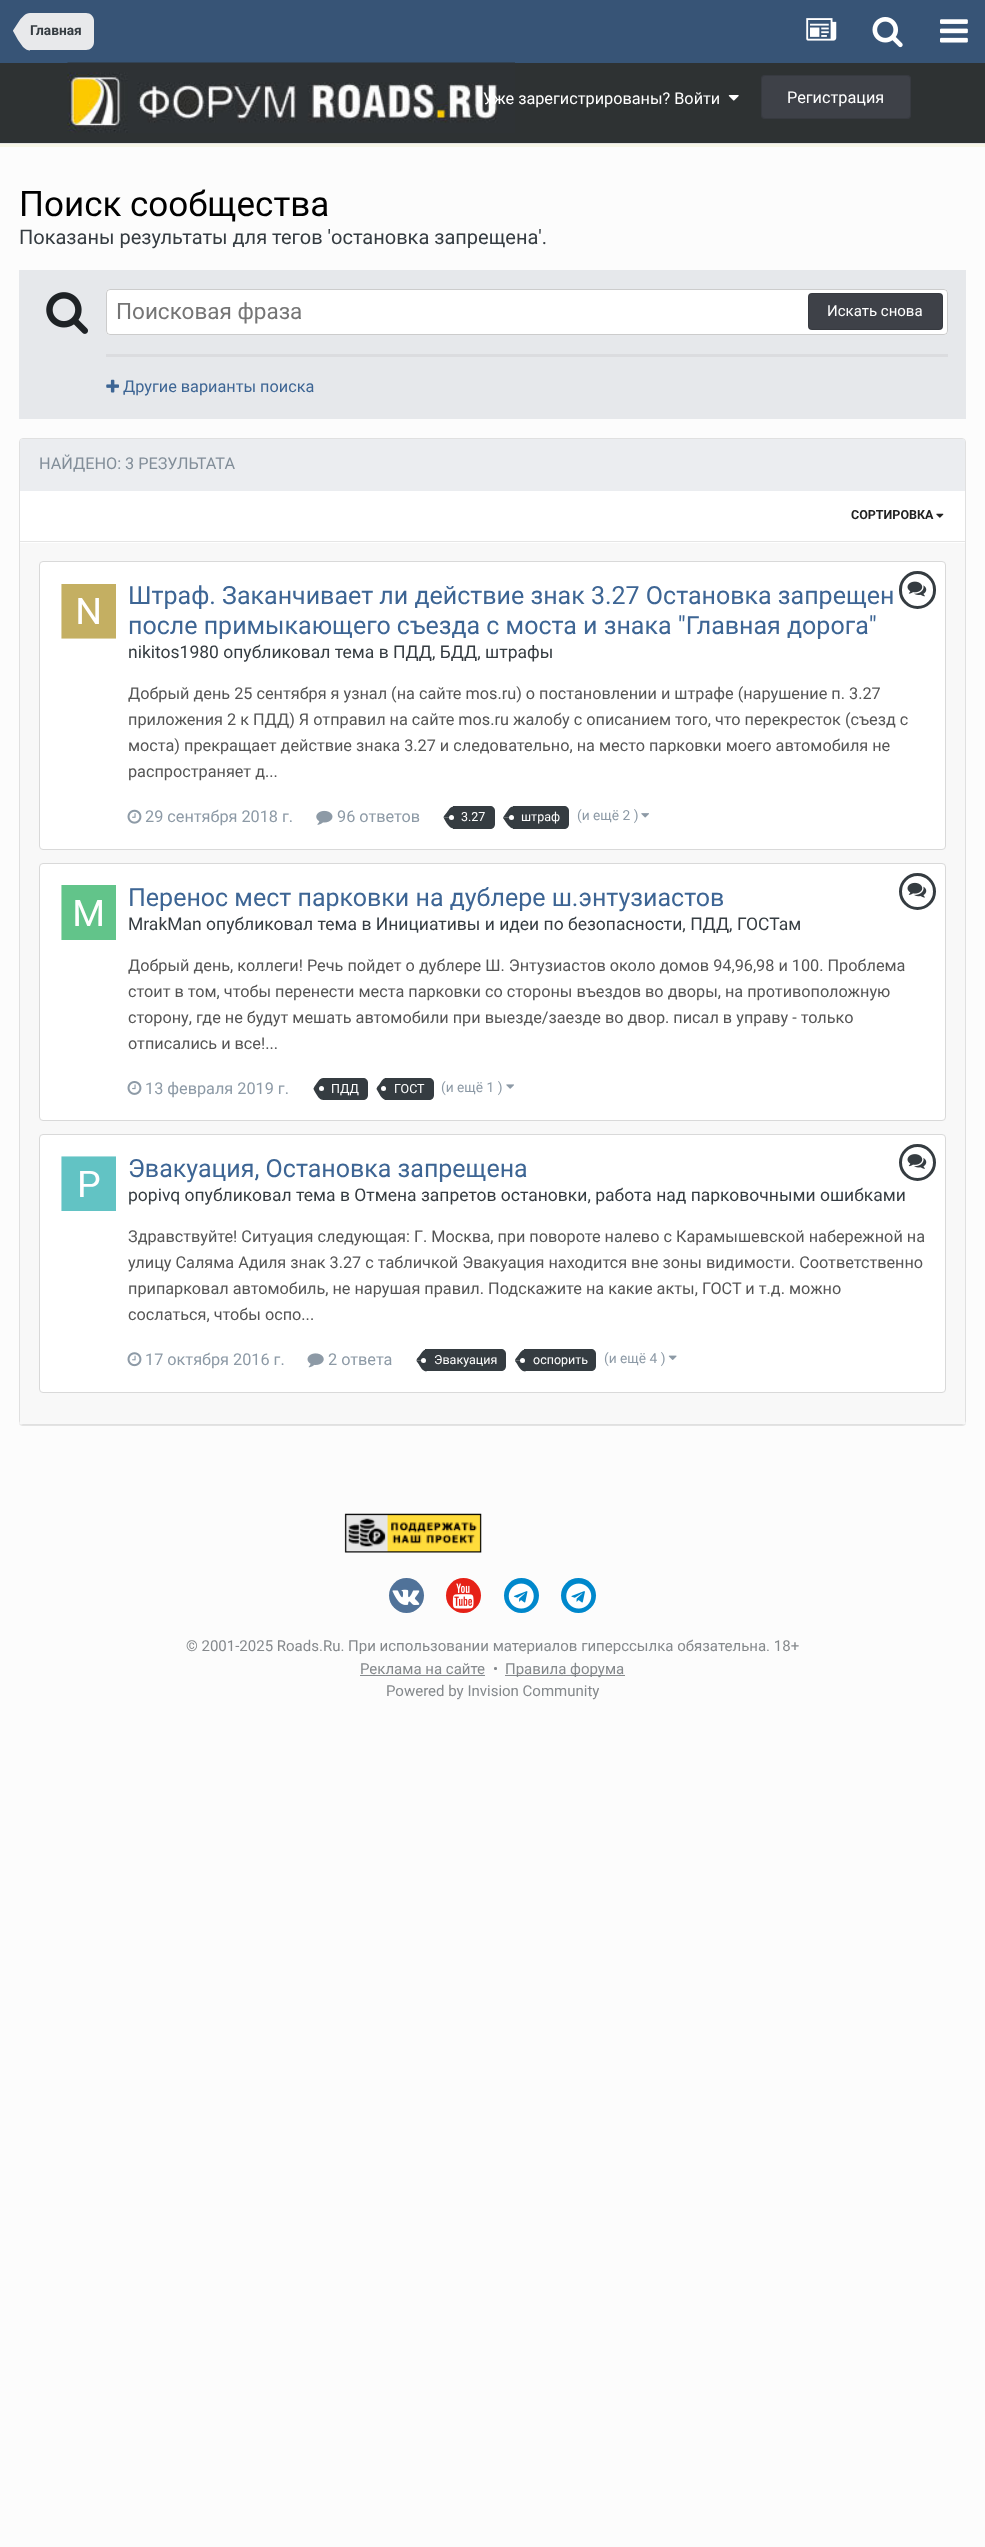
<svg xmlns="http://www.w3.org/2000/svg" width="985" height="2547">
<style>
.a{font:bold 13.75px Roboto;fill:#353c41}
.b{font:16.25px Roboto;fill:#fff}
.c{font:35px Roboto;fill:#000}
.d{font:20px Roboto;fill:#353c41}
.e{font:22.5px Roboto;fill:#757575}
.f{font:15px Roboto;fill:#fff}
.g{font:16.25px Roboto;fill:#3d6594}
.h{font:16.25px Roboto;fill:#828e99}
.i{font:bold 12.5px Roboto;fill:#222}
.j{font:25px Roboto;fill:#3d6594}
.k{font:17.5px Roboto;fill:#353c41}
.l{font:16.25px Roboto;fill:#555}
.m{font:16.25px Roboto;fill:#8d9aa6}
.n{font:12.5px Roboto;fill:#fff}
.o{font:13.75px Roboto;fill:#8d9aa6}
.p{font:15px Roboto;fill:#85898c}
</style>
<rect width="100%" height="100%" fill="#fcfcfc"/>
<path fill="#e3e3e3" d="M0 143h985v1H0z"/>
<path fill="#375476" d="M0 0h985v63H0z"/>
<path fill="#e8e9eb" d="M30 13h56c4.5 0 8 3.5 8 8v21c0 4.5-3.5 8-8 8h-56z"/>
<path fill="#e8e9eb" d="M13 31h17v19.5c-2 0-4.5-1-7-3.5l-5-7zm17-18v18h-17v-.5l7.5-11.5l3.5-3.5c1.5-1.5 3.5-2.5 6-2.5z"/>
<image href="1.png" x="806" y="18" width="31" height="23"/>
<image href="2.png" x="872" y="17" width="31" height="31"/>
<image href="3.png" x="940" y="19" width="28" height="24"/>
<path fill="#2e3233" d="M0 63h985v80H0z"/>
<image href="4.png" x="67" y="62" width="448" height="71"/>
<image href="5.png" x="728" y="95" width="11" height="6"/>
<rect fill="#3e4148" x="761" y="75" width="150" height="44" rx="4"/>
<rect fill="none" stroke="#0000001a" x="761.5" y="75.5" width="149" height="43" rx="3.5"/>
<path fill="#f7f6e7" d="M0 144h985v3H0z"/>
<path fill="#e6e8eb" d="M19 270h947v149H19z"/>
<image href="6.png" x="46" y="292" width="42" height="42"/>
<rect fill="#fff" x="106" y="289" width="842" height="46" rx="4"/>
<rect fill="none" stroke="#00000033" x="106.5" y="289.5" width="841" height="45" rx="3.5"/>
<rect fill="#3e4148" x="808" y="293" width="135" height="37" rx="4"/>
<rect fill="none" stroke="#0000001a" x="808.5" y="293.5" width="134" height="36" rx="3.5"/>
<path fill="#dbdcdf" d="M106 354h842v3H106z"/>
<image href="7.png" x="106" y="379" width="13" height="14"/>
<path fill="#e3e3e3" d="M19 1423c0 2 2 3 4 3h939c2 0 4-1 4-3c-1 1-2 2-4 2h-940c-1 0-2-1-3-2z"/>
<rect fill="none" stroke="#e0e0e0" x="19.5" y="438.5" width="946" height="986" rx="3.5"/>
<path fill="#ebedf0" d="M22.5 439h940c1.5 0 2.5 1 2.5 2.5v49.5h-945v-49.5c0-1.5 1-2.5 2.5-2.5z"/>
<path fill="#fff" d="M20 491h945v52H20z"/>
<path fill="#e6e6e6" d="M20 541h945v1H20z"/>
<image href="8.png" x="936" y="513" width="8" height="5"/>
<path fill="#f8f8f8" d="M20 543h945v881H20z"/>
<rect fill="#fff" stroke="#d9d9d9" x="39.5" y="561.5" width="906" height="288" rx="3.5"/>
<image href="9.png" x="61" y="584" width="55" height="55"/>
<rect fill="none" stroke="#353c41" stroke-width="3" x="900.5" y="572.5" width="34" height="35" rx="17"/>
<image href="10.png" x="907" y="581" width="20" height="16"/>
<image href="11.png" x="127" y="809" width="15" height="15"/>
<image href="12.png" x="316" y="810" width="17" height="15"/>
<path fill="#353c41" d="M453 806h37c3 0 5 2 5 5v13c0 3-2 5-5 5h-37z"/>
<path fill="#353c41" d="M444 818.5l-.5-1h10.5l-.5 .5h.5v10.5c-5 0-8-6.5-10-10z"/>
<path fill="#353c41" d="M446 813.5c2.5-2.5 3.5-7 8-7v10.5h-.5l.5 .5h-10.5c0-1.5 1.5-2.5 2.5-4z"/>
<circle fill="#fff" cx="451.5" cy="817.5" r="2.5"/>
<path fill="#353c41" d="M513 806h51c3 0 5 2 5 5v13c0 3-2 5-5 5h-51z"/>
<path fill="#353c41" d="M503 818v-.5h10.5l-.5 .5h.5v10.5c-4.5 0-8-7.5-10.5-10.5z"/>
<path fill="#353c41" d="M507.5 811c1.5-2.5 3-4.5 6-4.5v10.5h-.5l.5 .5h-10.5z"/>
<circle fill="#fff" cx="511.5" cy="817.5" r="2.5"/>
<image href="13.png" x="641" y="813" width="8" height="5"/>
<rect fill="#fff" stroke="#d9d9d9" x="39.5" y="863.5" width="906" height="257" rx="3.5"/>
<image href="14.png" x="61" y="885" width="55" height="55"/>
<circle fill="none" stroke="#353c41" stroke-width="3" cx="917.5" cy="891.5" r="17"/>
<image href="15.png" x="907" y="882" width="20" height="16"/>
<image href="16.png" x="127" y="1081" width="15" height="14"/>
<path fill="#353c41" d="M323 1078h40c3 0 5 2 5 5v12c0 3-2 5-5 5h-40z"/>
<path fill="#353c41" d="M323.5 1100c-4.5 0-6.5-5-8.5-8l-1.5-3h10l-.5 .5h.5z"/>
<path fill="#353c41" fill-rule="evenodd" d="M318 1081.5c1.5-2 3-3.5 5.5-3.5v10.5h-.5l.5 .5h-10c0-1.5 3.5-6 4.5-7.5zm5.5 7.5h0z"/>
<circle fill="#fff" cx="321.5" cy="1088.5" r="2.5"/>
<path fill="#353c41" d="M385 1078h44c3 0 5 2 5 5v12c0 3-2 5-5 5h-44z"/>
<path fill="#353c41" fill-rule="evenodd" d="M380.5 1096l-4-7h10v11c-2.5 0-4.5-2-6-4zm6-7h0zm-8-3.5c2.5-2.5 3.5-7.5 8-7.5v11h-10c0-1 1-2.5 2-3.5zm8 3.5h0z"/>
<circle fill="#fff" cx="383.5" cy="1088.5" r="2.5"/>
<image href="17.png" x="506" y="1084" width="8" height="5"/>
<rect fill="#fff" stroke="#d9d9d9" x="39.5" y="1134.5" width="906" height="258" rx="3.5"/>
<image href="18.png" x="61" y="1156" width="55" height="55"/>
<circle fill="none" stroke="#353c41" stroke-width="3" cx="917.5" cy="1162.5" r="17"/>
<image href="19.png" x="907" y="1154" width="20" height="15"/>
<image href="20.png" x="127" y="1352" width="15" height="15"/>
<image href="21.png" x="307" y="1353" width="17" height="15"/>
<path fill="#353c41" d="M425 1349h76c3 0 5 2 5 5v12c0 3-2 5-5 5h-76z"/>
<path fill="#353c41" fill-rule="evenodd" d="M419 1364.5l-2.5-3.5v-.5h10v.5v10.5c-3.5 0-6-4-7.5-7zm7.5-4h0z"/>
<path fill="#353c41" fill-rule="evenodd" d="M418.5 1357c2.5-2.5 4-7.5 8-7.5v10.5v.5h-10c0-1.5 1-2.5 2-3.5zm8 3.5h0z"/>
<circle fill="#fff" cx="423.5" cy="1360.5" r="2.5"/>
<path fill="#353c41" d="M524 1349h67c3 0 5 2 5 5v12c0 3-2 5-5 5h-67z"/>
<path fill="#353c41" d="M516.5 1363l-1.5-2v-.5h10.5l-.5 .5h.5v10.5c-4.5 0-7-5-9-8.5z"/>
<path fill="#353c41" d="M517 1357c2.5-2.5 4-7.5 8.5-7.5v10.5h-.5l.5 .5h-10.5c0-1.5 1.5-2.5 2-3.5z"/>
<circle fill="#fff" cx="522.5" cy="1360.5" r="2.5"/>
<image href="22.png" x="668" y="1355" width="9" height="5"/>
<image href="23.png" x="344" y="1513" width="138" height="40"/>
<circle fill="#507299" cx="406.5" cy="1595.5" r="17.5"/>
<image href="24.png" x="392" y="1589" width="28" height="16"/>
<circle fill="#e62117" cx="463.5" cy="1595.5" r="17.5"/>
<image href="25.png" x="452" y="1583" width="22" height="26"/>
<circle fill="#08c" cx="521.5" cy="1595.5" r="17.5"/>
<image href="26.png" x="508" y="1583" width="26" height="26"/>
<circle fill="#08c" cx="578.5" cy="1595.5" r="17.5"/>
<image href="27.png" x="566" y="1583" width="26" height="26"/>
<path fill="#85898c" d="M360 1675h125v1H360z"/>
<path fill="#85898c" d="M505 1675h120v1H505z"/>
<text class="a" x="30" y="35">Главная</text>
<text class="b" x="483" y="104">Уже зарегистрированы? Войти</text>
<text class="b" x="787" y="103">Регистрация</text>
<text class="c" x="19" y="216">Поиск сообщества</text>
<text class="d" x="19" y="244">Показаны результаты для тегов 'остановка запрещена'.</text>
<text class="e" x="116" y="319">Поисковая фраза</text>
<text class="f" x="827" y="316">Искать снова</text>
<text class="g" x="123" y="392">Другие варианты поиска</text>
<text class="h" x="39" y="469">НАЙДЕНО: 3 РЕЗУЛЬТАТА</text>
<text class="i" x="851" y="519">СОРТИРОВКА</text>
<text class="j" x="128" y="604">Штраф. Заканчивает ли действие знак 3.27 Остановка запрещен</text>
<text class="j" x="128" y="634">после примыкающего съезда с моста и знака "Главная дорога"</text>
<text class="k" x="128" y="658">nikitos1980 опубликовал тема в ПДД, БДД, штрафы</text>
<text class="l" x="128" y="699">Добрый день 25 сентября я узнал (на сайте mos.ru) о постановлении и штрафе (нарушение п. 3.27</text>
<text class="l" x="128" y="725">приложения 2 к ПДД) Я отправил на сайте mos.ru жалобу с описанием того, что перекресток (съезд с</text>
<text class="l" x="128" y="751">моста) прекращает действие знака 3.27 и следовательно, на место парковки моего автомобиля не</text>
<text class="l" x="128" y="777">распространяет д...</text>
<text class="m" x="145" y="822">29 сентября 2018 г.</text>
<text class="m" x="337" y="822">96 ответов</text>
<text class="n" x="461" y="821">3.27</text>
<text class="n" x="521" y="821">штраф</text>
<text class="o" x="577" y="820">(и ещё 2 )</text>
<text class="j" x="128" y="906">Перенос мест парковки на дублере ш.энтузиастов</text>
<text class="k" x="128" y="930">MrakMan опубликовал тема в Инициативы и идеи по безопасности, ПДД, ГОСТам</text>
<text class="l" x="128" y="971">Добрый день, коллеги! Речь пойдет о дублере Ш. Энтузиастов около домов 94,96,98 и 100. Проблема</text>
<text class="l" x="128" y="997">стоит в том, чтобы перенести места парковки со стороны въездов во дворы, на противоположную</text>
<text class="l" x="128" y="1023">сторону, где не будут мешать автомобили при выезде/заезде во двор. писал в управу - только</text>
<text class="l" x="128" y="1049">отписались и все!...</text>
<text class="m" x="145" y="1094">13 февраля 2019 г.</text>
<text class="n" x="331" y="1093">ПДД</text>
<text class="n" x="394" y="1093">ГОСТ</text>
<text class="o" x="441" y="1092">(и ещё 1 )</text>
<text class="j" x="128" y="1177">Эвакуация, Остановка запрещена</text>
<text class="k" x="128" y="1201">popivq опубликовал тема в Отмена запретов остановки, работа над парковочными ошибками</text>
<text class="l" x="128" y="1242">Здравствуйте! Ситуация следующая: Г. Москва, при повороте налево с Карамышевской набережной на</text>
<text class="l" x="128" y="1268">улицу Саляма Адиля знак 3.27 с табличкой Эвакуация находится вне зоны видимости. Соответственно</text>
<text class="l" x="128" y="1294">припарковал автомобиль, не нарушая правил. Подскажите на какие акты, ГОСТ и т.д. можно</text>
<text class="l" x="128" y="1320">сослаться, чтобы оспо...</text>
<text class="m" x="145" y="1365">17 октября 2016 г.</text>
<text class="m" x="328" y="1365">2 ответа</text>
<text class="n" x="434" y="1364">Эвакуация</text>
<text class="n" x="533" y="1364">оспорить</text>
<text class="o" x="604" y="1363">(и ещё 4 )</text>
<text class="p" x="186" y="1651">© 2001-2025 Roads.Ru. При использовании материалов гиперссылка обязательна. 18+</text>
<text class="p" x="360" y="1674">Реклама на сайте</text>
<text class="p" x="493" y="1674">•</text>
<text class="p" x="505" y="1674">Правила форума</text>
<text class="p" x="386" y="1696">Powered by Invision Community</text>
</svg>
